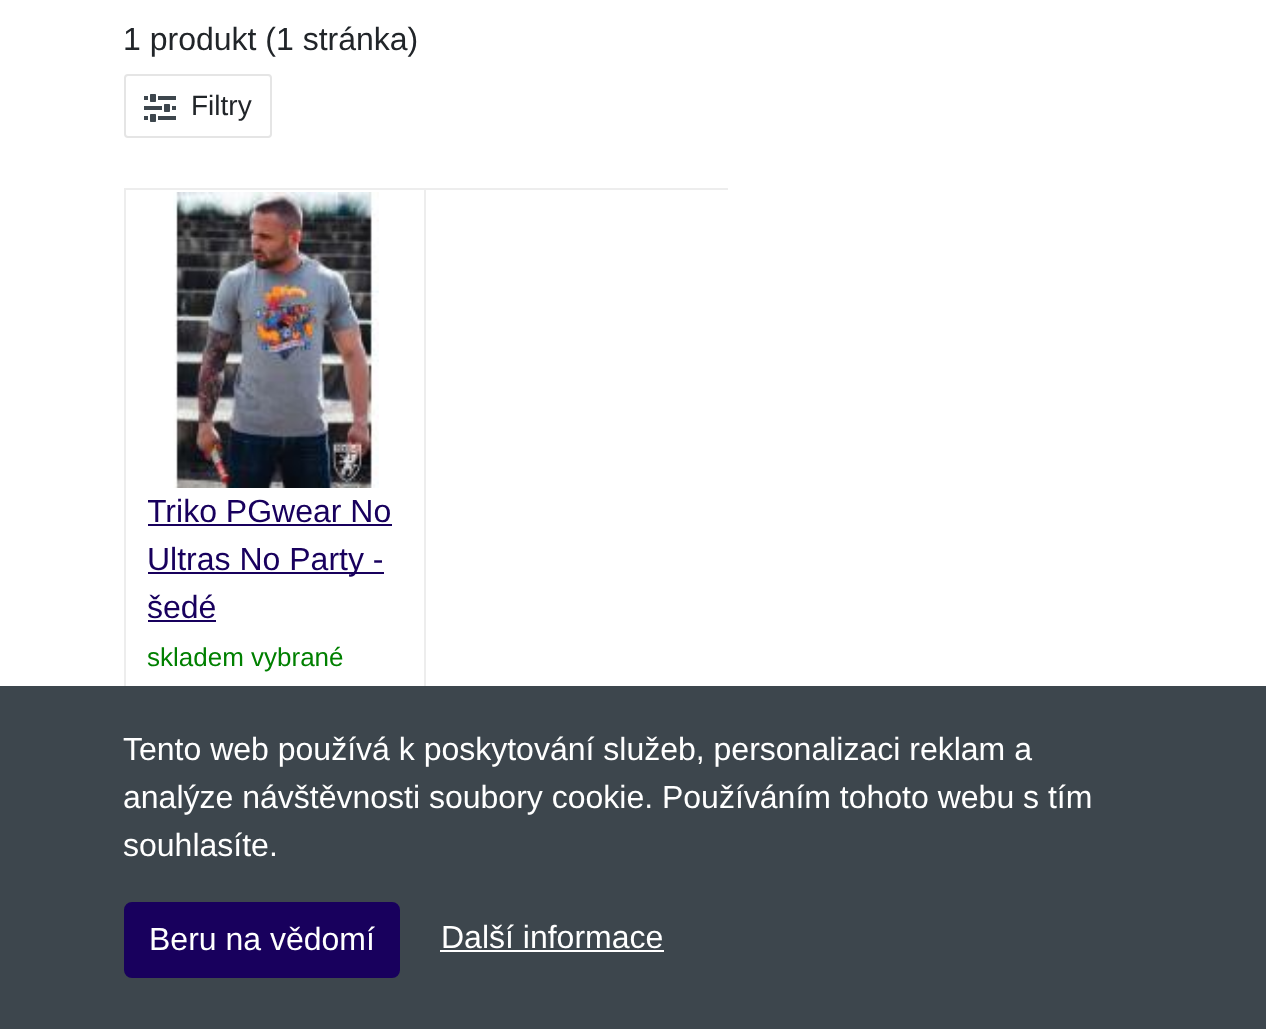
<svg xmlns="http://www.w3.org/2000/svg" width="1266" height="1029">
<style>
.a{font:32px Liberation Sans;fill:#212529}
.b{font:28px Liberation Sans;fill:#212529}
.c{font:32px Liberation Sans;fill:#18005d}
.d{font:26px Liberation Sans;fill:#008000}
.e{font:32px Liberation Sans;fill:#fff}
</style>
<defs>
<clipPath id="clip1"><path d="M148 488h264v150H148z"/></clipPath>
</defs>
<rect width="100%" height="100%" fill="#fff"/>
<rect fill="none" stroke="#e5e5e5" stroke-width="2" x="125" y="75" width="146" height="62" rx="3"/>
<image href="1.png" x="144" y="94" width="32" height="28"/>
<path fill="#ededed" d="M124 188h604v2H124z"/>
<path fill="#ededed" d="M124 188h2v498H124z"/>
<path fill="#ededed" d="M424 190h2v496H424z"/>
<image href="2.png" x="173" y="192" width="206" height="296"/>
<path fill="#18005d" d="M148 524h244v2H148z"/>
<path fill="#18005d" d="M148 572h236v2H148z"/>
<path fill="#18005d" d="M148 620h68v2H148z"/>
<path fill="#3d464d" d="M0 686h1266v343H0z"/>
<rect fill="#18005d" stroke="#18005d" stroke-width="2" x="125" y="903" width="274" height="74" rx="7"/>
<path fill="#fff" d="M440 950h224v2H440z"/>
<text class="a" x="123" y="50">1 produkt (1 stránka)</text>
<text class="b" x="191" y="115">Filtry</text>
<g clip-path="url(#clip1)">
<text class="c" x="147" y="522">Triko PGwear No</text>
</g>
<text class="c" x="147" y="570">Ultras No Party -</text>
<text class="c" x="147" y="618">šedé</text>
<text class="d" x="147" y="666">skladem vybrané</text>
<text class="e" x="123" y="760">Tento web používá k poskytování služeb, personalizaci reklam a</text>
<text class="e" x="123" y="808">analýze návštěvnosti soubory cookie. Používáním tohoto webu s tím</text>
<text class="e" x="123" y="856">souhlasíte.</text>
<text class="e" x="149" y="950">Beru na vědomí</text>
<text class="e" x="441" y="948">Další informace</text>
</svg>
